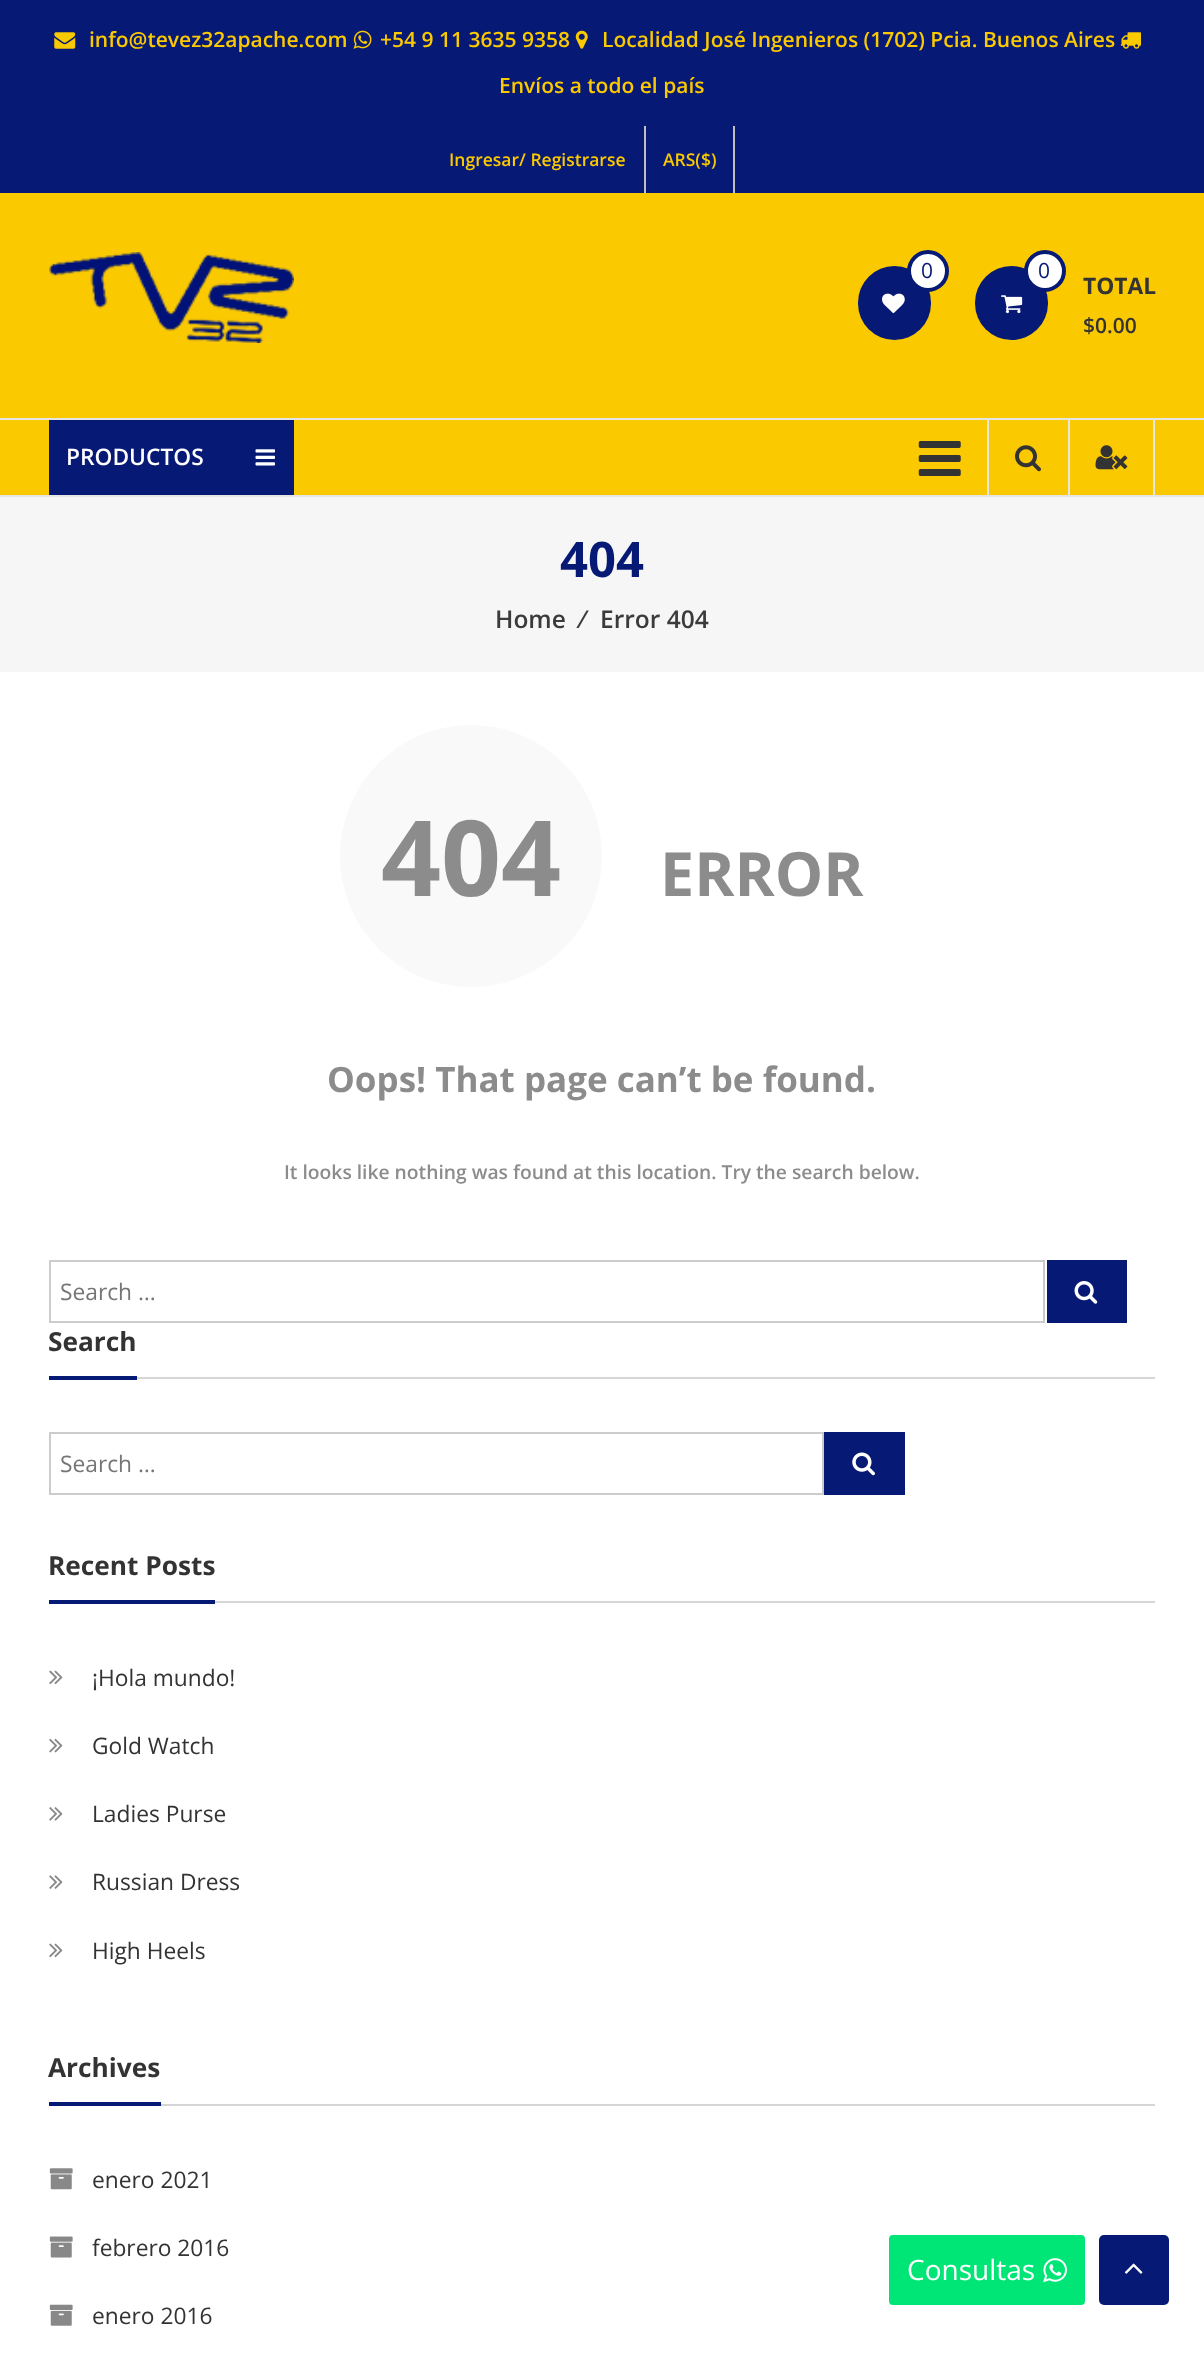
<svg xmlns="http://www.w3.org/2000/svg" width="1204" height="2357">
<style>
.a{font:600 21px Open Sans;fill:#fbc900}
.b{font:600 17.5px Open Sans;fill:#fbc900}
.c{font:21px Open Sans;fill:#061974}
.d{font:bold 22.75px Open Sans;fill:#333}
.e{font:600 21px Open Sans;fill:#333}
.f{font:600 22.75px Open Sans;fill:#fff}
.g{font:bold 49px Open Sans;fill:#061974}
.h{font:600 24.5px Open Sans;fill:#3b3b3b}
.i{font:bold 105px Open Sans;fill:#8c8c8c}
.j{font:bold 61px Open Sans;fill:#8c8c8c}
.k{font:bold 35px Open Sans;fill:#8c8c8c}
.l{font:600 19.25px Open Sans;fill:#8c8c8c}
.m{font:22.75px Open Sans;fill:#757575}
.n{font:bold 26.25px Open Sans;fill:#333}
.o{font:22.75px Open Sans;fill:#333}
.p{font:28px Open Sans;fill:#fff}
</style>
<rect width="100%" height="100%" fill="#fff"/>
<path fill="#061974" d="M0 0h1204v193H0z"/>
<image href="1.png" x="54" y="32" width="22" height="17"/>
<image href="2.png" x="353" y="30" width="19" height="19"/>
<image href="3.png" x="575" y="30" width="13" height="19"/>
<image href="4.png" x="1120" y="32" width="21" height="17"/>
<path fill="#c0bfbf" d="M644 126h2v67H644z"/>
<path fill="#c0bfbf" d="M733 126h2v67H733z"/>
<path fill="#fbc900" d="M0 193h1204v225H0z"/>
<image href="5.png" x="49" y="252" width="245" height="91"/>
<rect fill="#061974" x="858" y="266" width="73" height="74" rx="36.5"/>
<circle fill="#fff" stroke="#061974" stroke-width="4" cx="928" cy="271" r="19"/>
<image href="6.png" x="882" y="293" width="23" height="21"/>
<rect fill="#061974" x="975" y="266" width="73" height="74" rx="36.5"/>
<circle fill="#fff" stroke="#061974" stroke-width="4" cx="1045" cy="271" r="19"/>
<image href="7.png" x="1001" y="295" width="22" height="19"/>
<path fill="#fbc900" d="M0 420h1204v75H0z"/>
<path fill="#e5e5e5" d="M0 418h1204v2H0z"/>
<path fill="#e5e5e5" d="M0 495h1204v2H0z"/>
<path fill="#061974" d="M49 420h245v75H49z"/>
<image href="8.png" x="255" y="449" width="20" height="17"/>
<image href="9.png" x="918" y="441" width="43" height="35"/>
<path fill="#e5e5e5" d="M987 420h2v75H987z"/>
<image href="10.png" x="1015" y="445" width="26" height="27"/>
<path fill="#e5e5e5" d="M1153 420h2v75H1153z"/>
<path fill="#e5e5e5" d="M1068 420h2v75H1068z"/>
<image href="11.png" x="1095" y="445" width="33" height="25"/>
<path fill="#f6f6f6" d="M0 497h1204v175H0z"/>
<circle fill="#f9f9f9" cx="471" cy="856" r="131"/>
<path fill="none" stroke="#ccc" stroke-width="2" d="M50 1261h994v61H50z"/>
<path fill="#061974" d="M1047 1260h80v63H1047z"/>
<image href="12.png" x="1074" y="1281" width="24" height="23"/>
<path fill="#d6d6d6" d="M137 1377h1018v2H137z"/>
<path fill="#061974" d="M49 1376h88v4H49z"/>
<path fill="none" stroke="#ccc" stroke-width="2" d="M50 1433h773v61H50z"/>
<path fill="#061974" d="M824 1432h81v63H824z"/>
<image href="13.png" x="852" y="1452" width="23" height="24"/>
<path fill="#d6d6d6" d="M215 1601h940v2H215z"/>
<path fill="#061974" d="M49 1600h166v4H49z"/>
<image href="14.png" x="49" y="1670" width="14" height="15"/>
<image href="15.png" x="49" y="1738" width="14" height="15"/>
<image href="16.png" x="49" y="1807" width="14" height="14"/>
<image href="17.png" x="49" y="1875" width="14" height="14"/>
<image href="14.png" x="49" y="1943" width="14" height="15"/>
<path fill="#d6d6d6" d="M161 2104h994v2H161z"/>
<path fill="#061974" d="M49 2102h112v4H49z"/>
<image href="18.png" x="49" y="2168" width="24" height="22"/>
<image href="19.png" x="49" y="2236" width="24" height="22"/>
<image href="20.png" x="49" y="2304" width="24" height="22"/>
<rect fill="#00e676" x="889" y="2235" width="196" height="70" rx="4"/>
<image href="21.png" x="1043" y="2258" width="24" height="25"/>
<rect fill="#061974" x="1099" y="2235" width="70" height="70" rx="5"/>
<image href="22.png" x="1124" y="2263" width="19" height="11"/>
<text class="a" x="89" y="47">info@tevez32apache.com</text>
<text class="a" x="380" y="47">+54 9 11 3635 9358</text>
<text class="a" x="602" y="47">Localidad José Ingenieros (1702) Pcia. Buenos Aires</text>
<text class="a" x="499" y="93">Envíos a todo el país</text>
<text class="b" x="449" y="166">Ingresar/ Registrarse</text>
<text class="b" x="663" y="166">ARS($)</text>
<text class="c" x="921" y="278">0</text>
<text class="c" x="1038" y="278">0</text>
<text class="d" x="1083" y="294">TOTAL</text>
<text class="e" x="1083" y="333">$0.00</text>
<text class="f" x="66" y="465">PRODUCTOS</text>
<text class="g" x="560" y="577">404</text>
<text class="h" x="495" y="628">Home</text>
<text class="h" x="581" y="628">⁄</text>
<text class="h" x="600" y="628">Error 404</text>
<text class="i" x="381" y="896">404</text>
<text class="j" x="660" y="896">ERROR</text>
<text class="k" x="327" y="1092">Oops! That page can’t be found.</text>
<text class="l" x="284" y="1179">It looks like nothing was found at this location. Try the search below.</text>
<text class="m" x="60" y="1300">Search …</text>
<text class="n" x="48" y="1351">Search</text>
<text class="m" x="60" y="1472">Search …</text>
<text class="n" x="48" y="1575">Recent Posts</text>
<text class="o" x="92" y="1686">¡Hola mundo!</text>
<text class="o" x="92" y="1754">Gold Watch</text>
<text class="o" x="92" y="1822">Ladies Purse</text>
<text class="o" x="92" y="1890">Russian Dress</text>
<text class="o" x="92" y="1959">High Heels</text>
<text class="n" x="48" y="2077">Archives</text>
<text class="o" x="92" y="2188">enero 2021</text>
<text class="o" x="92" y="2256">febrero 2016</text>
<text class="o" x="92" y="2324">enero 2016</text>
<text class="p" x="907" y="2280">Consultas</text>
</svg>
